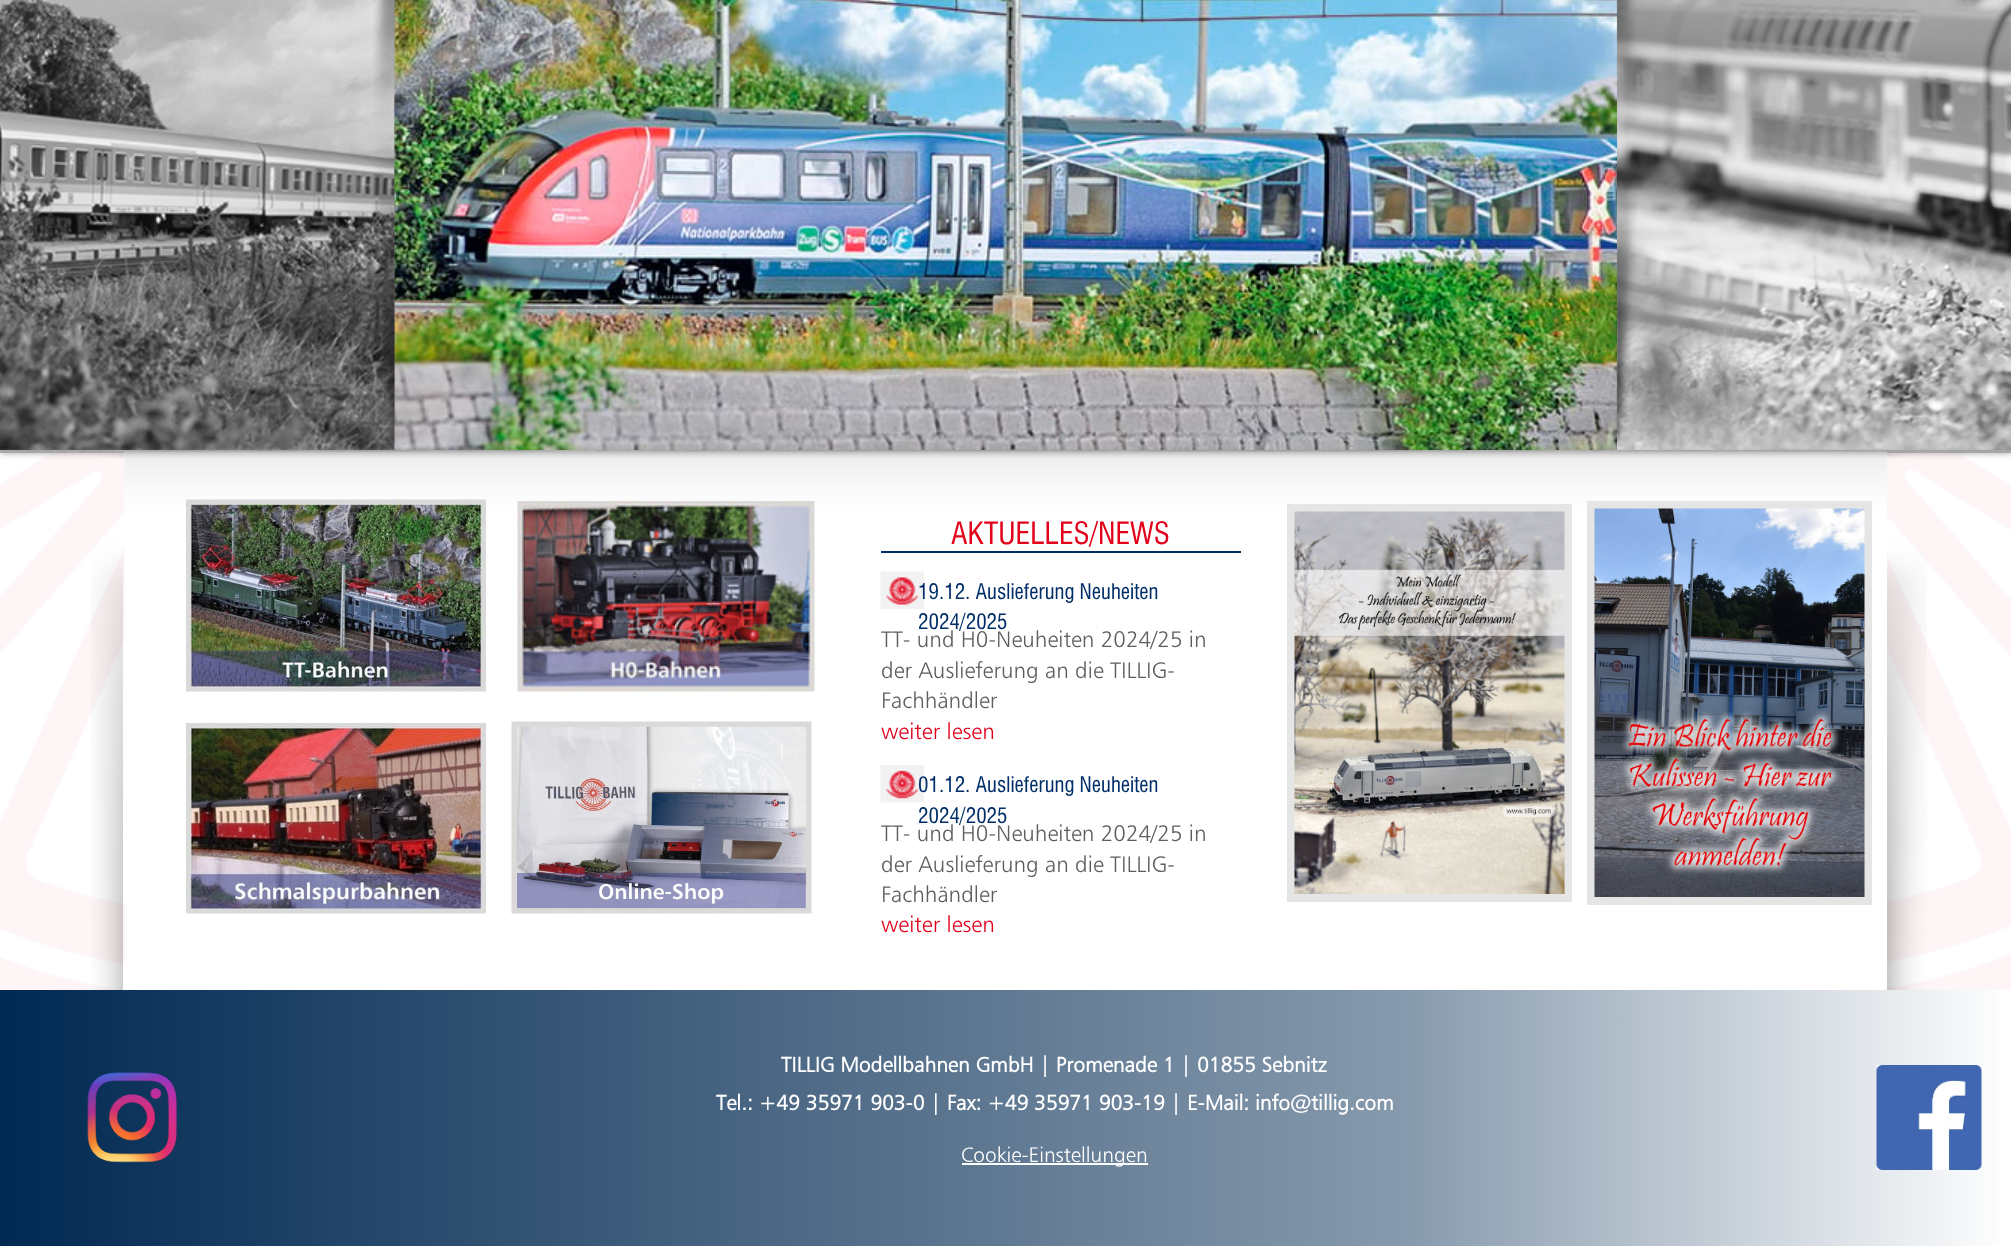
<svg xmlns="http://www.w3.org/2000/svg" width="2011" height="1246">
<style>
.a{font:30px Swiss;fill:#e2001a}
.b{font:21px Swiss;fill:#002e68}
.c{font:300 22.5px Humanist;fill:#5d5d5d}
.d{font:300 22.5px Humanist;fill:#e2001a}
.e{font:bold 21px Humanist;fill:#fff}
.f{font:300 21px Humanist;fill:#fff}
</style>
<defs>
<linearGradient id="g1" gradientUnits="userSpaceOnUse" x1="0" y1="1118" x2="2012" y2="1118"><stop offset="0" stop-color="#012952"/><stop offset="0.7" stop-color="#879aad"/><stop offset="1" stop-color="#fff"/></linearGradient>
</defs>
<rect width="100%" height="100%" fill="#fff"/>
<image href="1.png" x="0" y="453" width="2011" height="537"/>
<image href="2.png" x="1017" y="450" width="994" height="3"/>
<image href="3.png" x="0" y="0" width="1017" height="453"/>
<image href="9.png" x="91" y="451" width="32" height="539"/>
<image href="10.png" x="1887" y="451" width="40" height="539"/>
<image href="11.png" x="124" y="451" width="1763" height="61"/>
<path fill="#a1a1a1" filter="blur(3px)" d="M0 -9h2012v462H0z"/>
<image href="5.png" x="394" y="0" width="1" height="450"/>
<image href="4.png" x="0" y="0" width="395" height="450"/>
<image href="7.png" x="394" y="0" width="1223" height="450"/>
<image href="8.png" x="1617" y="0" width="394" height="450"/>
<image href="6.png" x="373" y="0" width="1264" height="447"/>
<path fill="#fff" d="M125 512h1762v478H125z"/>
<image href="12.png" x="186" y="499" width="300" height="193"/>
<image href="13.png" x="517" y="501" width="298" height="191"/>
<image href="14.png" x="186" y="723" width="300" height="191"/>
<image href="15.png" x="511" y="721" width="301" height="193"/>
<path fill="#002e68" d="M881 551h360v2H881z"/>
<image href="16.png" x="880" y="571" width="44" height="38"/>
<image href="17.png" x="880" y="765" width="44" height="38"/>
<path fill="none" stroke="#e5e5e5" stroke-width="8" d="M1291 508h277v390H1291z"/>
<image href="18.png" x="1294" y="511" width="271" height="383"/>
<path fill="none" stroke="#e5e5e5" stroke-width="8" d="M1591 505h277v396H1591z"/>
<image href="19.png" x="1594" y="508" width="271" height="389"/>
<path fill="url(#g1)" d="M0 990h1999v256H0z"/>
<image href="20.png" x="87" y="1072" width="90" height="91"/>
<path fill="#fff" d="M962 1163h186v2H962z"/>
<image href="21.png" x="1876" y="1065" width="106" height="105"/>
<text class="a" x="951" y="544">AKTUELLES/NEWS</text>
<text class="b" x="918" y="599">19.12. Auslieferung Neuheiten</text>
<text class="b" x="918" y="629">2024/2025</text>
<text class="c" x="881" y="647">TT- und H0-Neuheiten 2024/25 in</text>
<text class="c" x="881" y="678">der Auslieferung an die TILLIG-</text>
<text class="c" x="881" y="708">Fachhändler</text>
<text class="d" x="881" y="739">weiter lesen</text>
<text class="b" x="918" y="792">01.12. Auslieferung Neuheiten</text>
<text class="b" x="918" y="823">2024/2025</text>
<text class="c" x="881" y="841">TT- und H0-Neuheiten 2024/25 in</text>
<text class="c" x="881" y="872">der Auslieferung an die TILLIG-</text>
<text class="c" x="881" y="902">Fachhändler</text>
<text class="d" x="881" y="932">weiter lesen</text>
<text class="e" x="781" y="1072">TILLIG Modellbahnen GmbH | Promenade 1 | 01855 Sebnitz</text>
<text class="e" x="716" y="1110">Tel.: +49 35971 903-0 | Fax: +49 35971 903-19 | E-Mail: info@tillig.com</text>
<text class="f" x="961" y="1162">Cookie-Einstellungen</text>
</svg>
